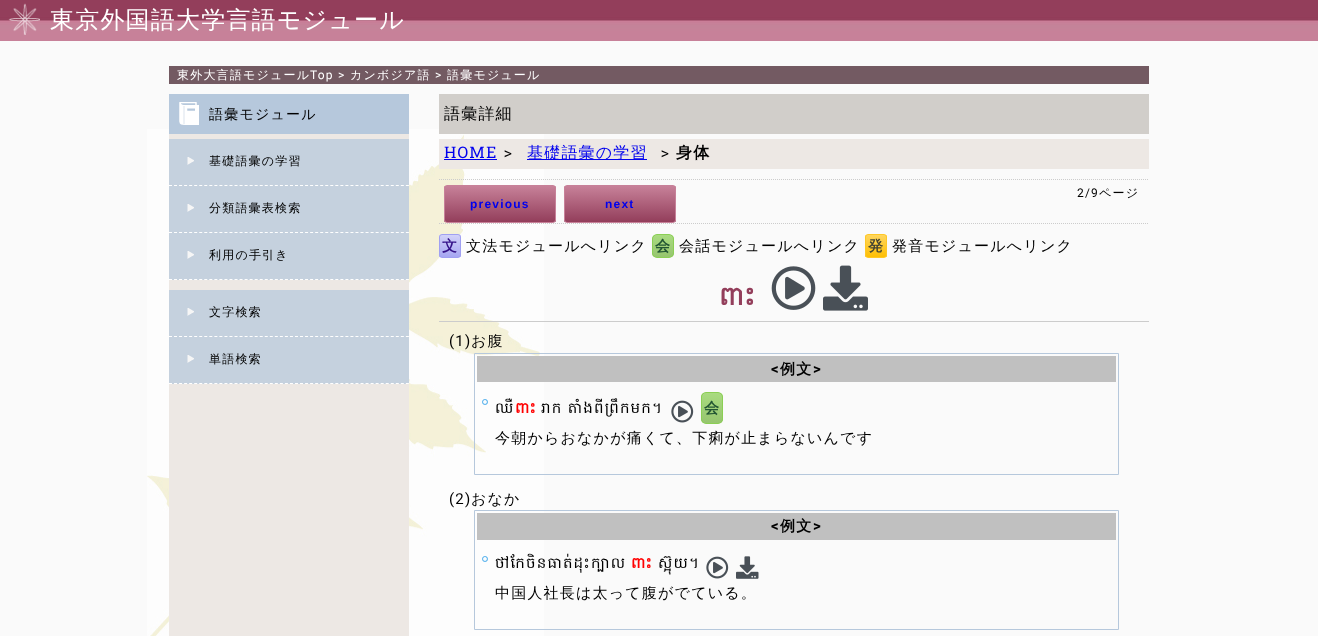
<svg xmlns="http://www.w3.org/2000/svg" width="1318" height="636">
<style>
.a{font:500 24px WenQuanYi Zen Hei;letter-spacing:1.2px;fill:#fff}
.b{font:500 12px WenQuanYi Zen Hei;letter-spacing:1.2px;fill:#fff}
.c{font:12px Roboto;letter-spacing:1.2px;fill:#fff}
.d{font:500 14px WenQuanYi Zen Hei;letter-spacing:1.2px;fill:#000}
.e{font:500 12px WenQuanYi Zen Hei;letter-spacing:1.2px;fill:#000}
.f{font:500 16px WenQuanYi Zen Hei;letter-spacing:1.2px;fill:#000}
.g{font:16px Hanuman;letter-spacing:1.2px;fill:#00e}
.h{font:16px Hanuman;letter-spacing:1.2px;fill:#000}
.i{font:500 16px WenQuanYi Zen Hei;letter-spacing:1.2px;fill:#00e}
.j{font:bold 16px WenQuanYi Zen Hei;letter-spacing:1.2px;fill:#000}
.k{font:12px Roboto;letter-spacing:1.2px;fill:#000}
.l{font:bold 12px Liberation Sans;letter-spacing:1.2px;fill:#00e}
.m{font:bold 15px WenQuanYi Zen Hei;letter-spacing:1.2px;fill:#318}
.n{font:500 15px WenQuanYi Zen Hei;letter-spacing:1.2px;fill:#000}
.o{font:bold 15px WenQuanYi Zen Hei;letter-spacing:1.2px;fill:#253}
.p{font:bold 15px WenQuanYi Zen Hei;letter-spacing:1.2px;fill:#443}
.q{font:bold 26px Hanuman;letter-spacing:1.2px;fill:#933e5b}
.r{font:15px Roboto;letter-spacing:1.2px;fill:#000}
.s{font:bold 15px Roboto;letter-spacing:1.2px;fill:#000}
.t{font:bold 15px WenQuanYi Zen Hei;letter-spacing:1.2px;fill:#000}
.u{font:15px Hanuman;letter-spacing:1.2px;fill:#000}
.v{font:bold 15px Hanuman;letter-spacing:1.2px;fill:#f00}
</style>
<defs>
<clipPath id="clip1"><rect x="444" y="185" width="112" height="38" rx="3"/></clipPath>
<linearGradient id="g1" gradientUnits="userSpaceOnUse" x1="500" y1="186" x2="500" y2="222"><stop offset="0" stop-color="#c78199"/><stop offset="1" stop-color="#933e5b"/></linearGradient>
<clipPath id="clip2"><rect x="564" y="185" width="112" height="38" rx="3"/></clipPath>
<linearGradient id="g2" gradientUnits="userSpaceOnUse" x1="620" y1="186" x2="620" y2="222"><stop offset="0" stop-color="#c78199"/><stop offset="1" stop-color="#933e5b"/></linearGradient>
<clipPath id="clip3"><rect x="439" y="234" width="22" height="24" rx="3"/></clipPath>
<linearGradient id="g3" gradientUnits="userSpaceOnUse" x1="450" y1="235" x2="450" y2="257"><stop offset="0" stop-color="#d2d2f9"/><stop offset="1" stop-color="#a6a6f2"/></linearGradient>
<clipPath id="clip4"><rect x="652" y="234" width="22" height="24" rx="5"/></clipPath>
<linearGradient id="g4" gradientUnits="userSpaceOnUse" x1="663" y1="235" x2="663" y2="257"><stop offset="0" stop-color="#a9db80"/><stop offset="1" stop-color="#96c56f"/></linearGradient>
<clipPath id="clip5"><rect x="865" y="234" width="22" height="24" rx="3"/></clipPath>
<linearGradient id="g5" gradientUnits="userSpaceOnUse" x1="876" y1="235" x2="876" y2="257"><stop offset="0" stop-color="#ffd65e"/><stop offset="1" stop-color="#febf04"/></linearGradient>
<clipPath id="clip6"><rect x="701" y="392" width="22" height="32" rx="5"/></clipPath>
<linearGradient id="g6" gradientUnits="userSpaceOnUse" x1="712" y1="393" x2="712" y2="423"><stop offset="0" stop-color="#a9db80"/><stop offset="1" stop-color="#96c56f"/></linearGradient>
</defs>
<rect width="100%" height="100%" fill="#fafafa"/>
<image href="1.png" x="147" y="129" width="397" height="507"/>
<image href="2.png" x="0" y="0" width="1318" height="41"/>
<image href="3.png" x="8" y="3" width="32" height="32"/>
<path fill="#735a62" d="M169 66h980v18H169z"/>
<path fill="#ede8e4" d="M169 134h240v502H169z"/>
<path fill="#b6c8dc" d="M169 94h240v40H169z"/>
<image href="4.png" x="179" y="102" width="20" height="23"/>
<path fill="#c5d1de" d="M169 139h240v141H169z"/>
<image href="5.png" x="187" y="157" width="7" height="8"/>
<path fill="none" stroke="#fff" stroke-dasharray="3 2.04" d="M169 185.5h240"/>
<image href="5.png" x="187" y="204" width="7" height="8"/>
<path fill="none" stroke="#fff" stroke-dasharray="3 2.04" d="M169 232.5h240"/>
<image href="5.png" x="187" y="251" width="7" height="8"/>
<path fill="none" stroke="#fff" stroke-dasharray="3 2.04" d="M169 279.5h240"/>
<path fill="#c5d1de" d="M169 290h240v94H169z"/>
<image href="5.png" x="187" y="308" width="7" height="8"/>
<path fill="none" stroke="#fff" stroke-dasharray="3 2.04" d="M169 336.5h240"/>
<image href="5.png" x="187" y="355" width="7" height="8"/>
<path fill="none" stroke="#fff" stroke-dasharray="3 2.04" d="M169 383.5h240"/>
<path fill="#d1ceca" d="M439 94h710v40H439z"/>
<path fill="#ede8e4" d="M439 139h710v30H439z"/>
<path fill="#00e" d="M444 159h53v1H444z"/>
<path fill="#00e" d="M527 159h120v1H527z"/>
<path fill="none" stroke="#ccc" stroke-dasharray="1 1" d="M439 179.5h710"/>
<path fill="none" stroke="#ccc" stroke-dasharray="1 1" d="M439 223.5h710"/>
<g clip-path="url(#clip1)">
<path fill="url(#g1)" d="M444 186h112v36H444z"/>
</g>
<rect fill="none" stroke="#c78199" x="444.5" y="185.5" width="111" height="37" rx="2.5"/>
<g clip-path="url(#clip2)">
<path fill="url(#g2)" d="M564 186h112v36H564z"/>
</g>
<rect fill="none" stroke="#c78199" x="564.5" y="185.5" width="111" height="37" rx="2.5"/>
<g clip-path="url(#clip3)">
<path fill="url(#g3)" d="M439 235h22v22H439z"/>
</g>
<rect fill="none" stroke="#a0a0f2" x="439.5" y="234.5" width="21" height="23" rx="2.5"/>
<g clip-path="url(#clip4)">
<path fill="url(#g4)" d="M652 235h22v22H652z"/>
</g>
<rect fill="none" stroke="#8bcf54" x="652.5" y="234.5" width="21" height="23" rx="4.5"/>
<g clip-path="url(#clip5)">
<path fill="url(#g5)" d="M865 235h22v22H865z"/>
</g>
<rect fill="none" stroke="#ffc826" x="865.5" y="234.5" width="21" height="23" rx="2.5"/>
<image href="6.png" x="771" y="266" width="45" height="44"/>
<image href="7.png" x="823" y="265" width="45" height="46"/>
<path fill="#ccc" d="M439 321h710v1H439z"/>
<path fill="none" stroke="#b6c8dc" d="M474.5 353.5h644v121H474.5z"/>
<path fill="#c0c0c0" d="M477 356h639v26H477z"/>
<image href="8.png" x="482" y="399" width="6" height="6"/>
<image href="9.png" x="671" y="400" width="23" height="23"/>
<g clip-path="url(#clip6)">
<path fill="url(#g6)" d="M701 393h22v30H701z"/>
</g>
<rect fill="none" stroke="#8bcf54" x="701.5" y="392.5" width="21" height="31" rx="4.5"/>
<path fill="none" stroke="#b6c8dc" d="M474.5 510.5h644v119H474.5z"/>
<path fill="#c0c0c0" d="M477 513h639v27H477z"/>
<image href="8.png" x="482" y="556" width="6" height="6"/>
<image href="9.png" x="706" y="556" width="23" height="23"/>
<image href="10.png" x="736" y="556" width="23" height="23"/>
<text class="a" x="50" y="28">東京外国語大学言語モジュール</text>
<text class="b" x="177" y="79">東外大言語モジュール</text>
<text class="c" x="310" y="79">Top &gt;</text>
<text class="b" x="350" y="79">カンボジア語</text>
<text class="c" x="435" y="79">&gt;</text>
<text class="b" x="447" y="79">語彙モジュール</text>
<text class="d" x="209" y="119">語彙モジュール</text>
<text class="e" x="209" y="165">基礎語彙の学習</text>
<text class="e" x="209" y="212">分類語彙表検索</text>
<text class="e" x="209" y="259">利用の手引き</text>
<text class="e" x="209" y="316">文字検索</text>
<text class="e" x="209" y="363">単語検索</text>
<text class="f" x="444" y="119">語彙詳細</text>
<text class="g" x="444" y="158">HOME</text>
<text class="h" x="504" y="158">&gt;</text>
<text class="i" x="527" y="158">基礎語彙の学習</text>
<text class="h" x="661" y="158">&gt;</text>
<text class="j" x="676" y="158">身体</text>
<text class="k" x="1077" y="197">2/9</text>
<text class="e" x="1099" y="197">ページ</text>
<text class="l" x="470" y="208">previous</text>
<text class="l" x="605" y="208">next</text>
<text class="m" x="442" y="251">文</text>
<text class="n" x="466" y="251">文法モジュールへリンク</text>
<text class="o" x="655" y="251">会</text>
<text class="n" x="679" y="251">会話モジュールへリンク</text>
<text class="p" x="868" y="251">発</text>
<text class="n" x="892" y="251">発音モジュールへリンク</text>
<text class="q" x="719" y="305">ពោះ</text>
<text class="r" x="449" y="346">(1)</text>
<text class="n" x="471" y="346">お腹</text>
<text class="s" x="771" y="374">&lt;</text>
<text class="t" x="780" y="374">例文</text>
<text class="s" x="813" y="374">&gt;</text>
<text class="u" x="495" y="413">ឈឺ</text>
<text class="v" x="515" y="413">ពោះ</text>
<text class="u" x="541" y="413" word-spacing="-1">រាក តាំងពីព្រឹកមក។</text>
<text class="o" x="704" y="413">会</text>
<text class="n" x="495" y="443">今朝からおなかが痛くて、下痢が止まらないんです</text>
<text class="r" x="449" y="504">(2)</text>
<text class="n" x="471" y="504">おなか</text>
<text class="s" x="771" y="531">&lt;</text>
<text class="t" x="780" y="531">例文</text>
<text class="s" x="813" y="531">&gt;</text>
<text class="u" x="495" y="568">ថៅកែចិនធាត់ដុះក្បាល</text>
<text class="u" x="658" y="568">ស៊្អុយ។</text>
<text class="v" x="631" y="568">ពោះ</text>
<text class="n" x="495" y="598">中国人社長は太って腹がでている。</text>
</svg>
